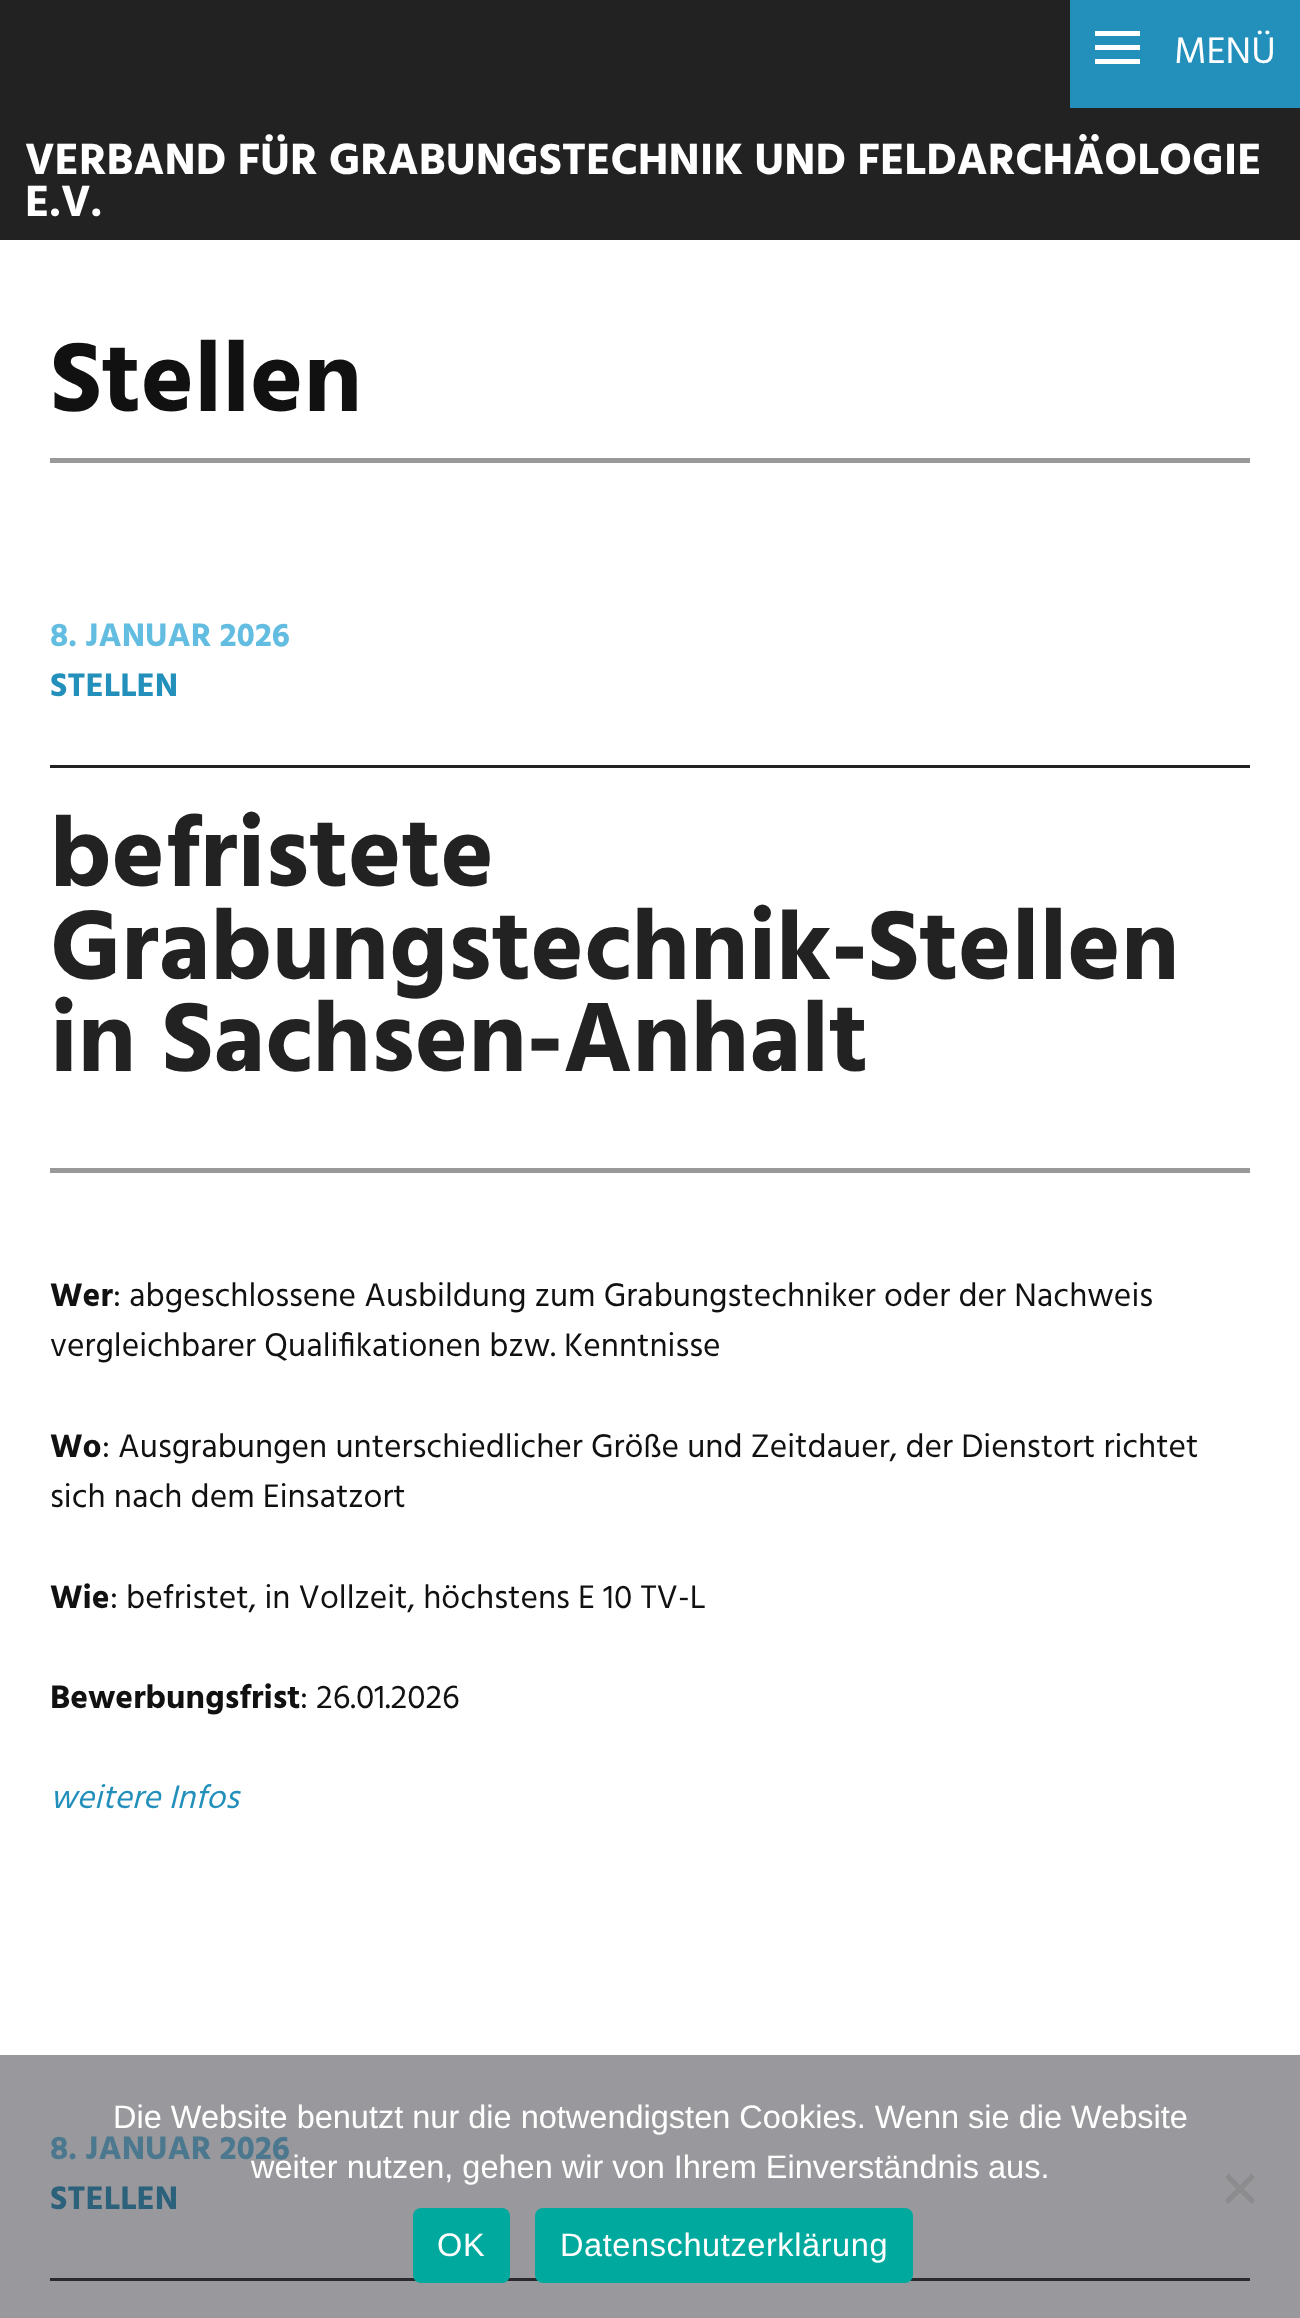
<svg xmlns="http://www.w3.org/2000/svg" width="1300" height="2318">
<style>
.a{font:38px Hind;fill:#fff}
.b{font:bold 44.8px Hind;fill:#fff}
.c{font:bold 100.75px Hind;fill:#111}
.d{font:bold 33.6px Hind;fill:#63bde1}
.e{font:bold 33.6px Hind;fill:#2390bb}
.f{font:bold 100.75px Hind;fill:#222}
.g{font:bold 33.6px Hind;fill:#111}
.h{font:33.6px Hind;fill:#111}
.i{font:italic 33.6px Hind;fill:#2390bb}
.j{font:bold 33.6px Hind;fill:#4b788e}
.k{font:bold 33.6px Hind;fill:#2b617b}
.l{font:32.5px Liberation Sans;fill:#fff}
.m{font:32.5px Liberation Sans;letter-spacing:0.6px;fill:#fff}
</style>
<rect width="100%" height="100%" fill="#fff"/>
<path fill="#99999d" d="M0 2055h1300v263H0z"/>
<path fill="#222" d="M0 0h1300v240H0z"/>
<path fill="#2390bb" d="M1070 0h230v108H1070z"/>
<path fill="#fff" d="M1095 64v-5h45v5zm0-33h45v5h-45zm0 19v-5h45v5z"/>
<path fill="#999" d="M50 458h1200v5H50z"/>
<path fill="#222" d="M50 765h1200v3H50z"/>
<path fill="#999" d="M50 1168h1200v5H50z"/>
<path fill="#2a2a2e" d="M50 2278h1200v3H50z"/>
<path fill="#8c8c8e" d="M1251.5 2173.5l3.5 4l-26.5 26.5l-3.5-4z"/>
<path fill="#8c8c8e" d="M1225 2177.5l3.5-4l26.5 26.5l-3.5 4z"/>
<rect fill="#00a99d" x="413" y="2208" width="97" height="75" rx="8"/>
<rect fill="#00a99d" x="535" y="2208" width="378" height="75" rx="8"/>
<text class="a" x="1174" y="63">MENÜ</text>
<text class="b" x="25" y="174">VERBAND FÜR GRABUNGSTECHNIK UND FELDARCHÄOLOGIE</text>
<text class="b" x="25" y="216">E.V.</text>
<text class="c" x="50" y="411">Stellen</text>
<text class="d" x="50" y="646">8. JANUAR 2026</text>
<text class="e" x="50" y="696">STELLEN</text>
<text class="f" x="50" y="886">befristete</text>
<text class="f" x="50" y="979">Grabungstechnik-Stellen</text>
<text class="f" x="50" y="1071">in Sachsen-Anhalt</text>
<text class="g" x="50" y="1306">Wer</text>
<text class="h" x="113" y="1306">: abgeschlossene Ausbildung zum Grabungstechniker oder der Nachweis</text>
<text class="h" x="50" y="1356">vergleichbarer Qualifikationen bzw. Kenntnisse</text>
<text class="g" x="50" y="1457">Wo</text>
<text class="h" x="102" y="1457">: Ausgrabungen unterschiedlicher Größe und Zeitdauer, der Dienstort richtet</text>
<text class="h" x="50" y="1507">sich nach dem Einsatzort</text>
<text class="g" x="50" y="1608">Wie</text>
<text class="h" x="110" y="1608">: befristet, in Vollzeit, höchstens E 10 TV-L</text>
<text class="g" x="50" y="1708">Bewerbungsfrist</text>
<text class="h" x="300" y="1708">: 26.01.2026</text>
<text class="i" x="50" y="1808">weitere Infos</text>
<text class="j" x="50" y="2159">8. JANUAR 2026</text>
<text class="k" x="50" y="2209">STELLEN</text>
<text class="l" x="113" y="2128">Die Website benutzt nur die notwendigsten Cookies. Wenn sie die Website</text>
<text class="l" x="251" y="2178">weiter nutzen, gehen wir von Ihrem Einverständnis aus.</text>
<text class="m" x="437" y="2256">OK</text>
<text class="m" x="560" y="2256">Datenschutzerklärung</text>
</svg>
